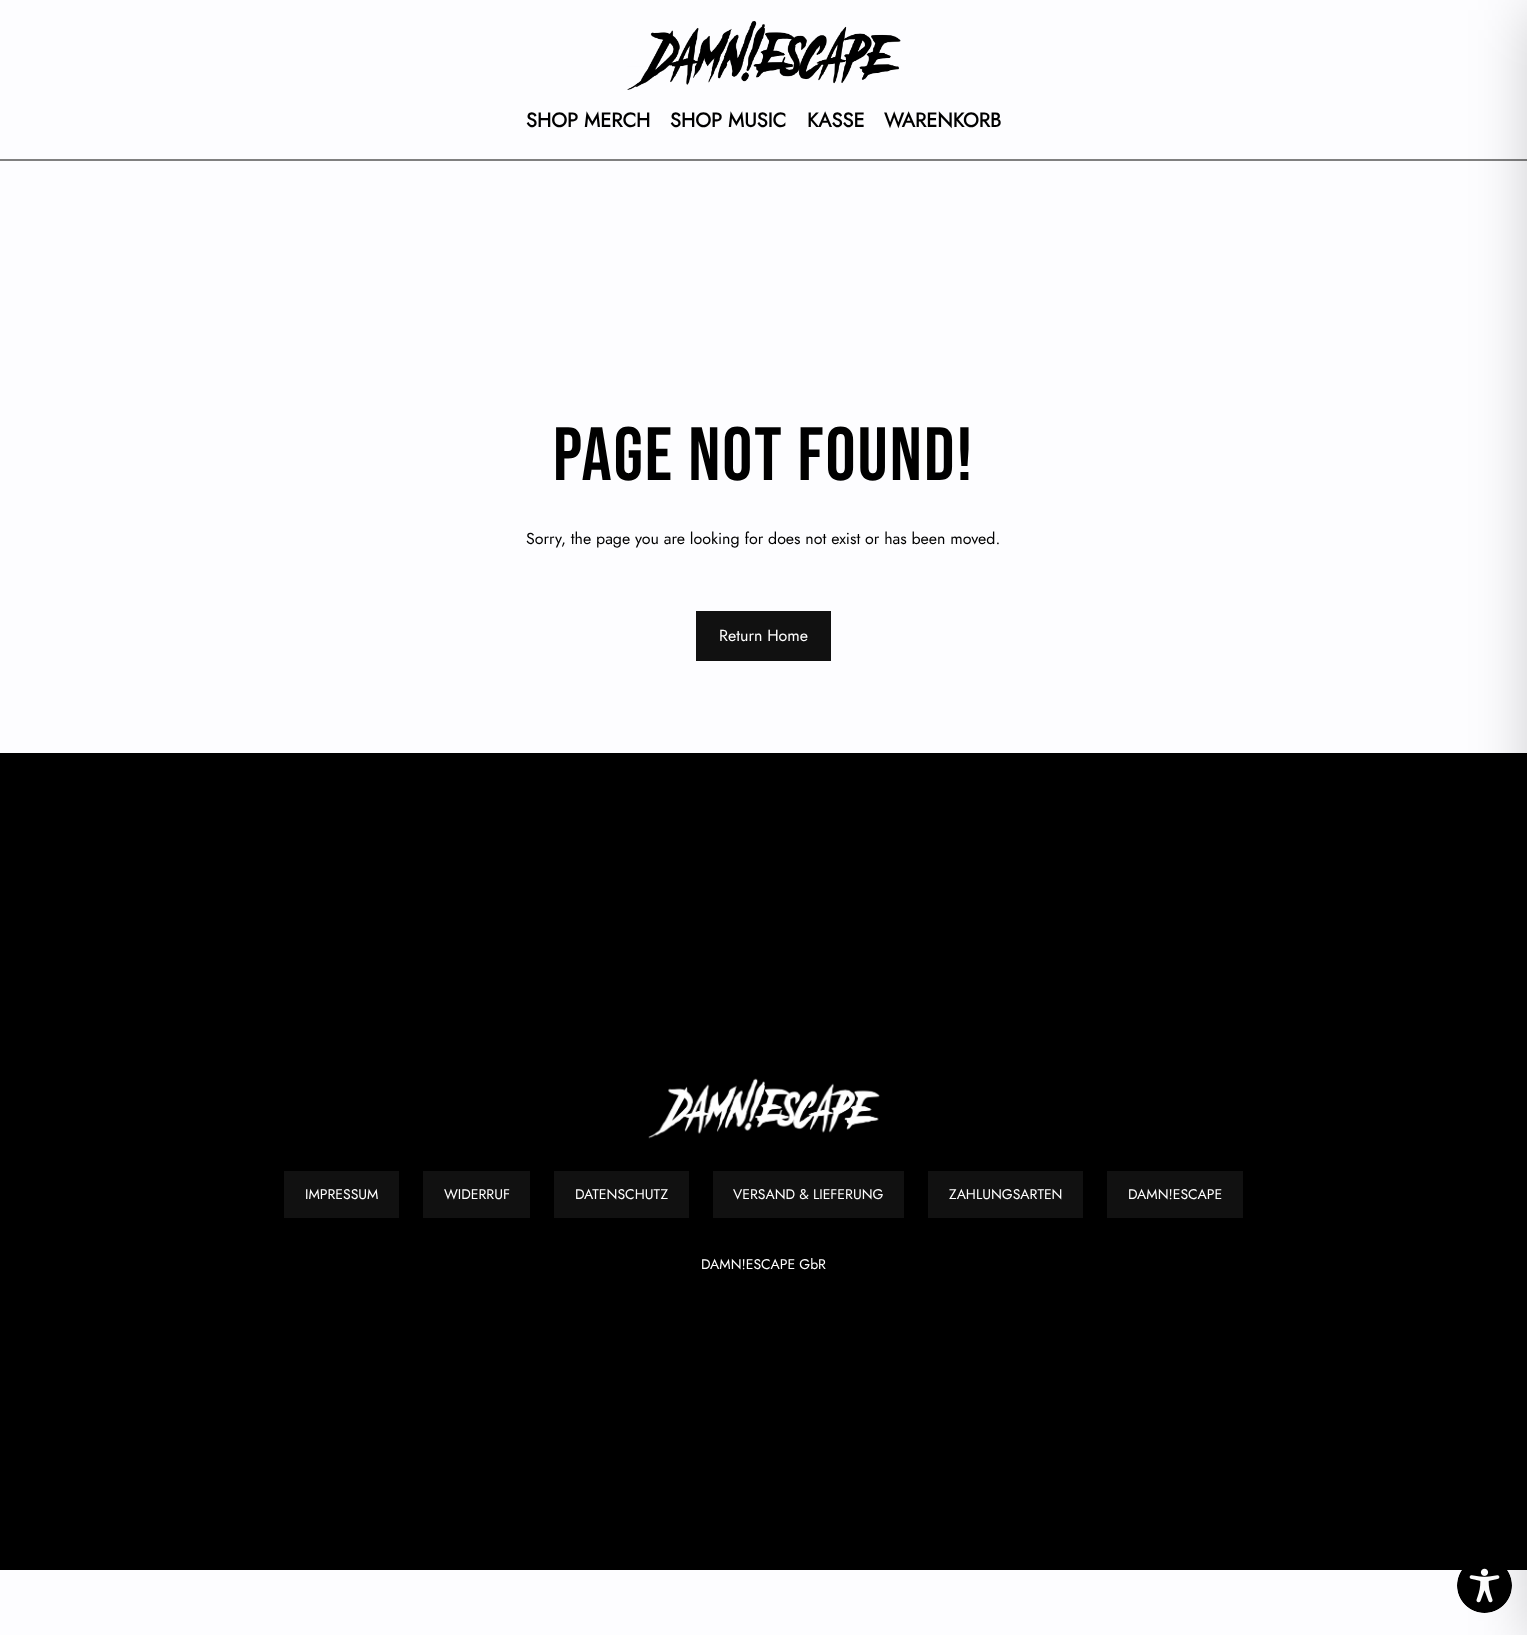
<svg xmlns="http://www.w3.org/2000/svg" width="1527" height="1635">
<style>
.a{font:bold 20px Jost;fill:#000}
.b{font:75.25px Bebas Neue;letter-spacing:2px;fill:#000}
.c{font:16px Jost;fill:#000}
.d{font:16px Jost;fill:#fff}
.e{font:14px Jost;fill:#fff}
</style>
<rect width="100%" height="100%" fill="#fdfdff"/>
<image href="1.png" x="627" y="21" width="274" height="69"/>
<path fill="#808080" d="M0 159h1527v2H0z"/>
<path fill="#111" d="M696 611h135v50H696z"/>
<path fill="#000" d="M0 753h1527v817H0z"/>
<image href="2.png" x="648" y="1078" width="232" height="61"/>
<path fill="#111" d="M284 1171h115v47H284z"/>
<path fill="#111" d="M423 1171h107v47H423z"/>
<path fill="#111" d="M554 1171h135v47H554z"/>
<path fill="#111" d="M713 1171h191v47H713z"/>
<path fill="#111" d="M928 1171h155v47H928z"/>
<path fill="#111" d="M1107 1171h136v47H1107z"/>
<image href="3.png" x="1457" y="1568" width="55" height="45"/>
<path fill="#00000033" filter="blur(30px)" d="M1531 10h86v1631H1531z"/>
<text class="a" x="526" y="127">SHOP MERCH</text>
<text class="a" x="670" y="127">SHOP MUSIC</text>
<text class="a" x="807" y="127">KASSE</text>
<text class="a" x="884" y="127">WARENKORB</text>
<text class="b" x="553" y="480">Page not found!</text>
<text class="c" x="526" y="544">Sorry, the page you are looking for does not exist or has been moved.</text>
<text class="d" x="719" y="641">Return Home</text>
<text class="e" x="305" y="1199">IMPRESSUM</text>
<text class="e" x="444" y="1199">WIDERRUF</text>
<text class="e" x="575" y="1199">DATENSCHUTZ</text>
<text class="e" x="733" y="1199">VERSAND &amp; LIEFERUNG</text>
<text class="e" x="949" y="1199">ZAHLUNGSARTEN</text>
<text class="e" x="1128" y="1199">DAMN!ESCAPE</text>
<text class="e" x="701" y="1269">DAMN!ESCAPE GbR</text>
</svg>
